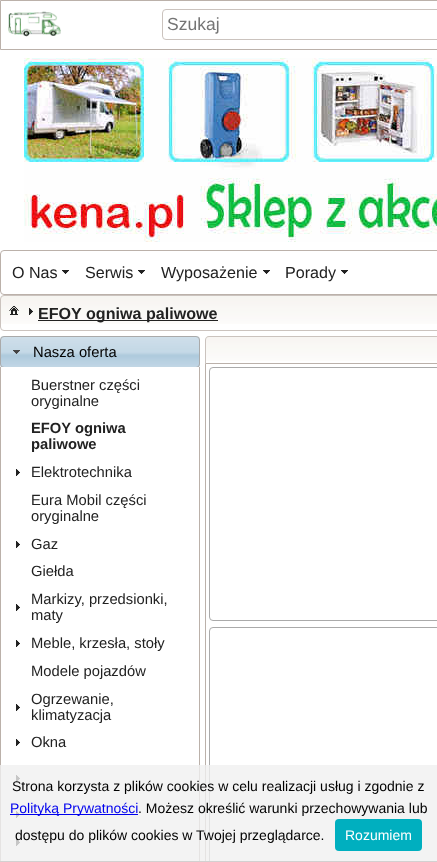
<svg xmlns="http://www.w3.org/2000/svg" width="437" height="862">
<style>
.a{font:17.5px Liberation Sans;fill:#757575}
.b{font:16.1px Liberation Sans;fill:#222}
.c{font:bold 16.1px Liberation Sans;fill:#222}
.d{font:14.75px Liberation Sans;fill:#000}
.e{font:14.75px Liberation Sans;fill:#222}
.f{font:bold 14.75px Liberation Sans;fill:#222}
.g{font:14px Liberation Sans;fill:#000}
.h{font:14px Liberation Sans;fill:#00e}
.i{font:14px Liberation Sans;fill:#fff}
</style>
<rect width="100%" height="100%" fill="#fff"/>
<path fill="none" stroke="#bbb1aa" d="M0.5 0.5h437v49H0.5z"/>
<image href="1.png" x="8" y="11" width="53" height="26"/>
<rect fill="none" stroke="#cbc3be" x="162.5" y="9.5" width="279" height="30" rx="3.5"/>
<image href="2.png" x="24" y="58" width="413" height="184"/>
<rect fill="none" stroke="#bbb1aa" x="0.5" y="250.5" width="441" height="44" rx="3.5"/>
<image href="3.png" x="62" y="270" width="7" height="4"/>
<image href="3.png" x="138" y="270" width="7" height="4"/>
<image href="3.png" x="263" y="270" width="7" height="4"/>
<image href="3.png" x="341" y="270" width="7" height="4"/>
<image href="4.png" x="0" y="295" width="437" height="29"/>
<rect fill="none" stroke="#cbc3be" x="0.5" y="295.5" width="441" height="35" rx="3.5"/>
<image href="5.png" x="9" y="306" width="10" height="9"/>
<image href="6.png" x="29" y="308" width="4" height="7"/>
<path fill="#222" d="M38 320h180v1H38z"/>
<image href="7.png" x="0" y="336" width="200" height="31"/>
<rect fill="none" stroke="#aaa" x="0.5" y="336.5" width="199" height="31" rx="3.5"/>
<image href="8.png" x="13" y="350" width="7" height="4"/>
<path fill="#fff" d="M1 367h198v1H1z"/>
<path fill="#bbb1aa" d="M199 367h1v495H199z"/>
<path fill="#bbb1aa" d="M0 367h1v495H0z"/>
<image href="9.png" x="16" y="469" width="4" height="7"/>
<image href="9.png" x="16" y="541" width="4" height="7"/>
<image href="9.png" x="16" y="604" width="4" height="7"/>
<image href="9.png" x="16" y="640" width="4" height="7"/>
<image href="9.png" x="16" y="704" width="4" height="7"/>
<image href="9.png" x="16" y="739" width="4" height="7"/>
<image href="9.png" x="16" y="775" width="4" height="7"/>
<image href="9.png" x="16" y="811" width="4" height="7"/>
<image href="9.png" x="16" y="839" width="4" height="7"/>
<image href="10.png" x="205" y="336" width="232" height="25"/>
<path fill="#cbc3be" fill-rule="evenodd" d="M209 336h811c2 0 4 2 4 4v23h-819v-23c0-2 2-4 4-4zm0 1h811c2 0 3 1 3 3v23h-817v-23c0-2 1-3 3-3z"/>
<path fill="none" stroke="#bbb1aa" d="M205.5 363.5h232v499H205.5z"/>
<rect fill="none" stroke="#aaa" x="209.5" y="367.5" width="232" height="253" rx="3.5"/>
<rect fill="none" stroke="#aaa" x="209.5" y="627.5" width="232" height="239" rx="3.5"/>
<path fill="#f0f0f0cc" d="M0 765h437v96H0z"/>
<path fill="#d3d0d0" d="M0 861h437v1H0z"/>
<path fill="#00e" d="M10 814h128v1H10z"/>
<rect fill="#00afbf" x="335" y="819" width="87" height="32" rx="4"/>
<text class="a" x="167" y="30">Szukaj</text>
<text class="b" x="12" y="278">O Nas</text>
<text class="b" x="85" y="278">Serwis</text>
<text class="b" x="161" y="278">Wyposażenie</text>
<text class="b" x="285" y="278">Porady</text>
<text class="c" x="38" y="319">EFOY ogniwa paliwowe</text>
<text class="d" x="33" y="357">Nasza oferta</text>
<text class="e" x="31" y="390">Buerstner części</text>
<text class="e" x="31" y="406">oryginalne</text>
<text class="f" x="31" y="433">EFOY ogniwa</text>
<text class="f" x="31" y="449">paliwowe</text>
<text class="e" x="31" y="477">Elektrotechnika</text>
<text class="e" x="31" y="505">Eura Mobil części</text>
<text class="e" x="31" y="521">oryginalne</text>
<text class="e" x="31" y="549">Gaz</text>
<text class="e" x="31" y="576">Giełda</text>
<text class="e" x="31" y="604">Markizy, przedsionki,</text>
<text class="e" x="31" y="620">maty</text>
<text class="e" x="31" y="648">Meble, krzesła, stoły</text>
<text class="e" x="31" y="676">Modele pojazdów</text>
<text class="e" x="31" y="704">Ogrzewanie,</text>
<text class="e" x="31" y="720">klimatyzacja</text>
<text class="e" x="31" y="747">Okna</text>
<text class="g" x="12" y="791">Strona korzysta z plików cookies w celu realizacji usług i zgodnie z</text>
<text class="h" x="10" y="813">Polityką Prywatności</text>
<text class="g" x="138" y="813">. Możesz określić warunki przechowywania lub</text>
<text class="g" x="15" y="840">dostępu do plików cookies w Twojej przeglądarce.</text>
<text class="i" x="345" y="840">Rozumiem</text>
</svg>
